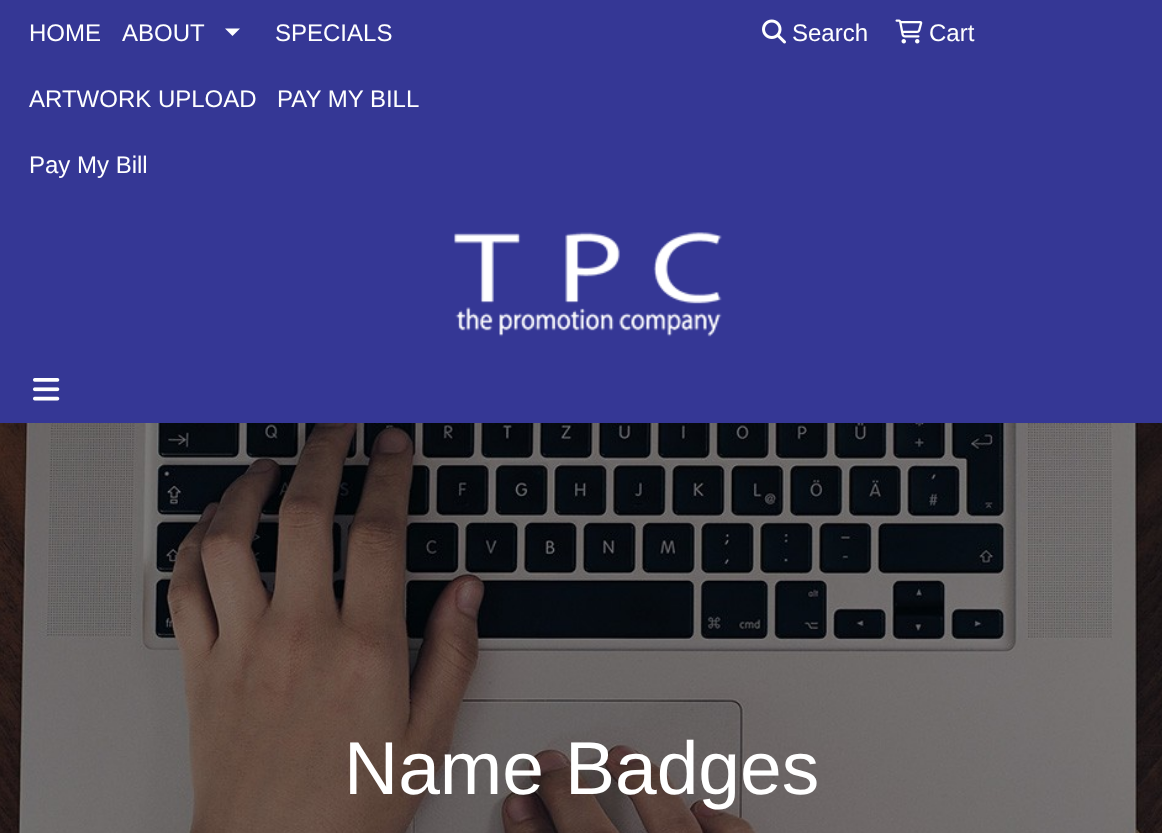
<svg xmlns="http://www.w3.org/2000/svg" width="1162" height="833">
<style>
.a{font:24px Liberation Sans;fill:#fff}
.b{font:75px Liberation Sans;fill:#fff}
</style>
<rect width="100%" height="100%" fill="#353795"/>
<path fill="#fff" d="M225 28.5h15l-7.5 7.5z"/>
<image href="1.png" x="762" y="19" width="24" height="25"/>
<image href="2.png" x="895" y="19" width="28" height="25"/>
<image href="3.png" x="454" y="232" width="268" height="105"/>
<image href="4.png" x="33" y="378" width="27" height="23"/>
<image href="5.png" x="0" y="423" width="1162" height="410"/>
<text class="a" x="29" y="41">HOME</text>
<text class="a" x="122" y="41">ABOUT</text>
<text class="a" x="275" y="41">SPECIALS</text>
<text class="a" x="29" y="107">ARTWORK UPLOAD</text>
<text class="a" x="277" y="107">PAY MY BILL</text>
<text class="a" x="29" y="173">Pay My Bill</text>
<text class="a" x="792" y="41">Search</text>
<text class="a" x="929" y="41">Cart</text>
<text class="b" x="344" y="794">Name Badges</text>
</svg>
